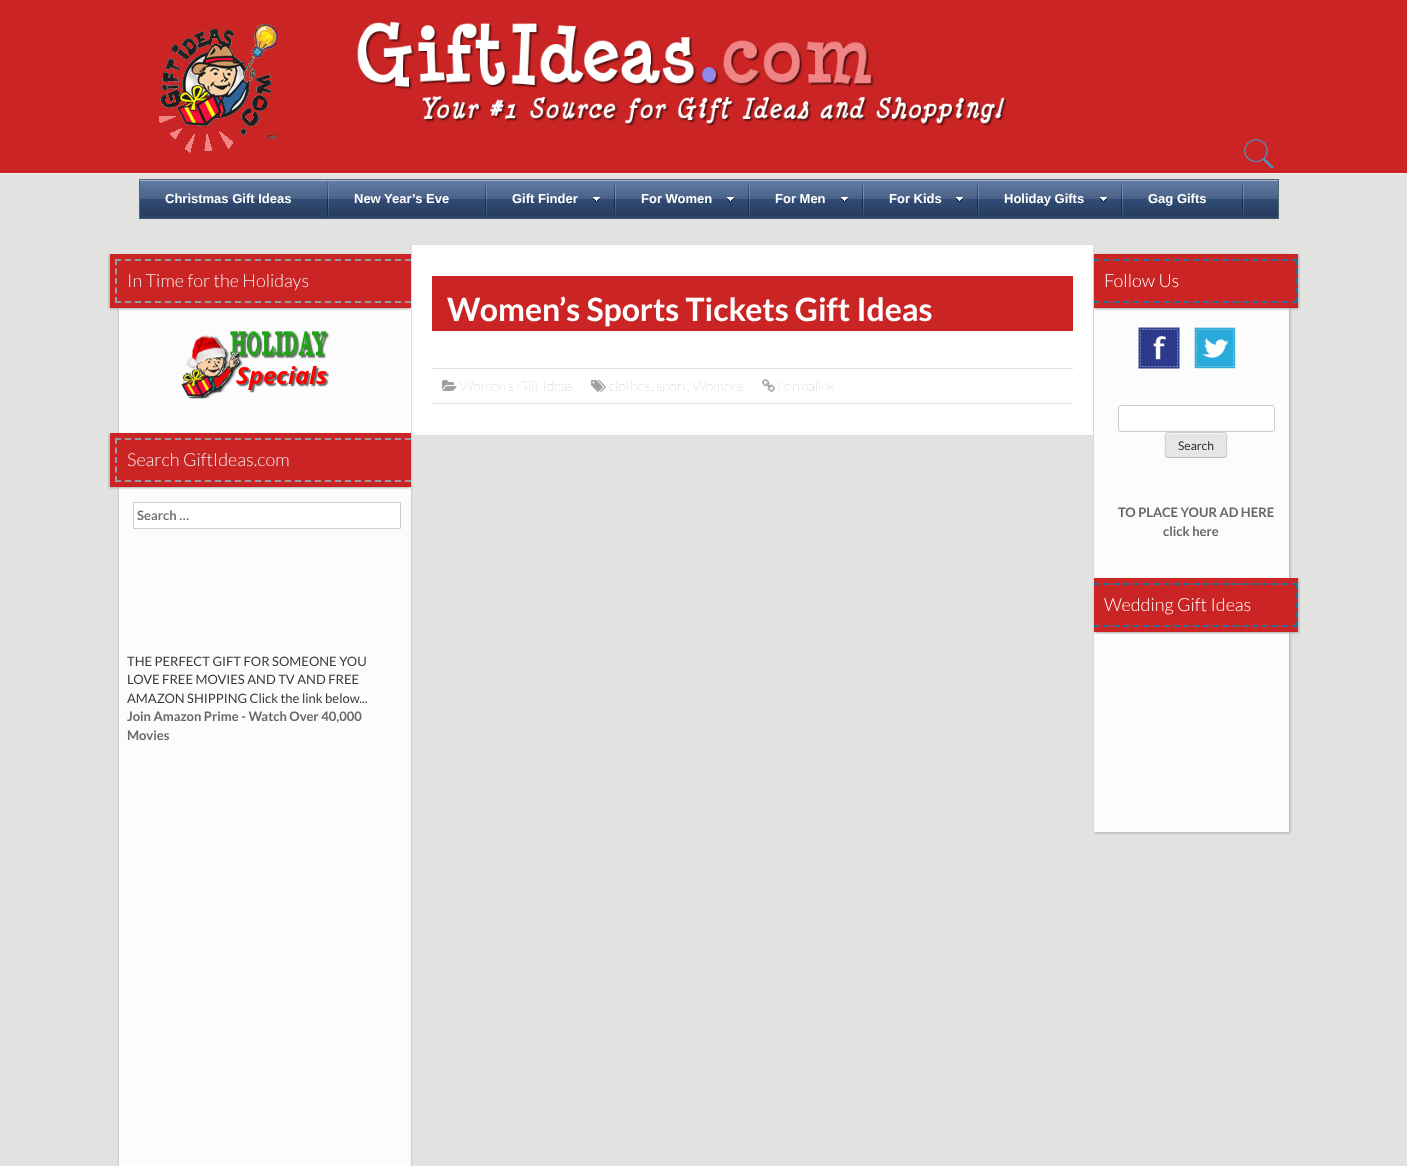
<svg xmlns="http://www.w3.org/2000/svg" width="1407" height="1166">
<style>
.a{font:bold 13px Liberation Sans;fill:#fff}
.b{font:300 18px Lato;fill:#eee}
.c{font:bold 13px Lato;fill:#757575}
.d{font:13px Lato;fill:#3a3a3a}
.e{font:bold 13px Lato;fill:#686868}
.f{font:bold 32px Lato;fill:#fff}
.g{font:100 14px Lato;fill:#a0a0a0}
.h{font:300 18px Lato;fill:#fff}
.i{font:12px Lato;fill:#2e2e2e}
</style>
<rect width="100%" height="100%" fill="#e2e2e1"/>
<path fill="#cb2424" d="M0 0h1407v173H0z"/>
<path fill="#eee" d="M0 173h1407v1H0z"/>
<image href="1.png" x="159" y="23" width="119" height="130"/>
<image href="2.png" x="357" y="22" width="650" height="104"/>
<image href="3.png" x="1244" y="139" width="30" height="30"/>
<image href="4.png" x="140" y="179" width="1138" height="40"/>
<path fill="#536573" d="M1278 179h1v40H1278z"/>
<path fill="#536573" d="M139 179h1v40H139z"/>
<image href="5.png" x="327" y="180" width="2" height="38"/>
<image href="5.png" x="485" y="180" width="2" height="38"/>
<image href="6.png" x="614" y="180" width="2" height="38"/>
<image href="7.png" x="593" y="197" width="8" height="6"/>
<image href="5.png" x="748" y="180" width="2" height="38"/>
<image href="7.png" x="727" y="197" width="8" height="6"/>
<image href="6.png" x="862" y="180" width="2" height="38"/>
<image href="7.png" x="841" y="197" width="8" height="6"/>
<image href="5.png" x="977" y="180" width="2" height="38"/>
<image href="7.png" x="956" y="197" width="8" height="6"/>
<image href="6.png" x="1121" y="180" width="2" height="38"/>
<image href="7.png" x="1100" y="197" width="8" height="6"/>
<image href="5.png" x="1242" y="180" width="2" height="38"/>
<path fill="#aaa" filter="blur(1px)" d="M119 255h292v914H119z"/>
<path fill="#fcfcfc" d="M119 308h292v858H119z"/>
<path fill="#aaa" filter="blur(1px)" d="M109 255h301v54H109z"/>
<path fill="#cb2424" d="M110 254h301v54H110z"/>
<path fill="none" stroke="#969ca3" stroke-width="2" stroke-dasharray="6 4" d="M115 260h296"/>
<path fill="none" stroke="#969ca3" stroke-width="2" stroke-dasharray="6 4" d="M115 302h296"/>
<path fill="none" stroke="#969ca3" stroke-width="2" stroke-dasharray="6 3.5" d="M116 259v44"/>
<image href="8.png" x="181" y="330" width="149" height="69"/>
<path fill="#aaa" filter="blur(1px)" d="M109 434h301v54H109z"/>
<path fill="#cb2424" d="M110 433h301v54H110z"/>
<path fill="none" stroke="#969ca3" stroke-width="2" stroke-dasharray="6 4" d="M115 439h296"/>
<path fill="none" stroke="#969ca3" stroke-width="2" stroke-dasharray="6 4" d="M115 481h296"/>
<path fill="none" stroke="#969ca3" stroke-width="2" stroke-dasharray="6 3.5" d="M116 438v44"/>
<path fill="#fff" stroke="#ccc" d="M133.5 502.5h267v26H133.5z"/>
<path fill="#fff" stroke="#ddd" d="M411.5 244.5h682v191H411.5z"/>
<path fill="#cb2424" d="M432 276h641v55H432z"/>
<path fill="#e0e0e0" d="M432 368h641v1H432z"/>
<path fill="#e0e0e0" d="M432 403h641v1H432z"/>
<image href="9.png" x="442" y="380" width="15" height="11"/>
<image href="10.png" x="591" y="380" width="15" height="12"/>
<image href="11.png" x="762" y="379" width="13" height="13"/>
<path fill="#aaa" filter="blur(1.5px)" d="M1095 255h195v578H1095z"/>
<path fill="#fcfcfc" d="M1094 308h195v524H1094z"/>
<path fill="#aaa" filter="blur(1px)" d="M1095 255h204v54H1095z"/>
<path fill="#cb2424" d="M1094 254h204v54H1094z"/>
<path fill="none" stroke="#2e6f94" stroke-width="2" stroke-dasharray="6 3.9" d="M1094 260h204"/>
<path fill="none" stroke="#2e6f94" stroke-width="2" stroke-dasharray="6 3.5" d="M1297 259v44"/>
<path fill="none" stroke="#2e6f94" stroke-width="2" stroke-dasharray="6 3.9" d="M1094 302h204"/>
<image href="12.png" x="1138" y="327" width="42" height="42"/>
<image href="13.png" x="1194" y="327" width="42" height="42"/>
<rect fill="#fff" stroke="#ccc" x="1118.5" y="405.5" width="156" height="26" rx="2.5"/>
<rect fill="#e6e6e6" x="1165" y="432" width="62" height="26" rx="3"/>
<path fill="#f3f3f3" d="M1168 434h56c1 0 2 1 2 2c0-6-8-3-11-3h-38c-3 0-11-3-11 3c0-1 1-2 2-2z"/>
<path fill="none" stroke="#bbb" d="M1226 457l-2 .5h-56l-2-.5"/>
<path fill="none" stroke="#ccc" d="M1166 457c-1.5-2-.5-9.5-.5-12c0-14.5-2.5-12.5 12-12.5h37c14.5 0 12-2 12 12.5c0 2.5 1 10-.5 12"/>
<path fill="#aaa" filter="blur(1px)" d="M1095 579h204v54H1095z"/>
<path fill="#cb2424" d="M1094 578h204v54H1094z"/>
<path fill="none" stroke="#2e6f94" stroke-width="2" stroke-dasharray="6 3.9" d="M1094 584h204"/>
<path fill="none" stroke="#2e6f94" stroke-width="2" stroke-dasharray="6 3.5" d="M1297 583v44"/>
<path fill="none" stroke="#2e6f94" stroke-width="2" stroke-dasharray="6 3.9" d="M1094 626h204"/>
<text class="a" x="165" y="203">Christmas Gift Ideas</text>
<text class="a" x="354" y="203">New Year’s Eve</text>
<text class="a" x="512" y="203">Gift Finder</text>
<text class="a" x="641" y="203">For Women</text>
<text class="a" x="775" y="203">For Men</text>
<text class="a" x="889" y="203">For Kids</text>
<text class="a" x="1004" y="203">Holiday Gifts</text>
<text class="a" x="1148" y="203">Gag Gifts</text>
<text class="b" x="127" y="287">In Time for the Holidays</text>
<text class="b" x="127" y="466">Search GiftIdeas.com</text>
<text class="c" x="137" y="520">Search …</text>
<text class="d" x="127" y="666">THE PERFECT GIFT FOR SOMEONE YOU</text>
<text class="d" x="127" y="684">LOVE FREE MOVIES AND TV AND FREE</text>
<text class="d" x="127" y="703">AMAZON SHIPPING Click the link below...</text>
<text class="e" x="127" y="721">Join Amazon Prime - Watch Over 40,000</text>
<text class="e" x="127" y="740">Movies</text>
<text class="f" x="447" y="321">Women’s Sports Tickets Gift Ideas</text>
<text class="g" x="460" y="391">Women’s Gift Ideas</text>
<text class="g" x="609" y="391">clothes, sport, Womens</text>
<text class="g" x="777" y="391">Permalink</text>
<text class="h" x="1104" y="287">Follow Us</text>
<text class="i" x="1178" y="450">Search</text>
<text class="e" x="1118" y="517">TO PLACE YOUR AD HERE</text>
<text class="e" x="1163" y="536">click here</text>
<text class="h" x="1104" y="611">Wedding Gift Ideas</text>
</svg>
